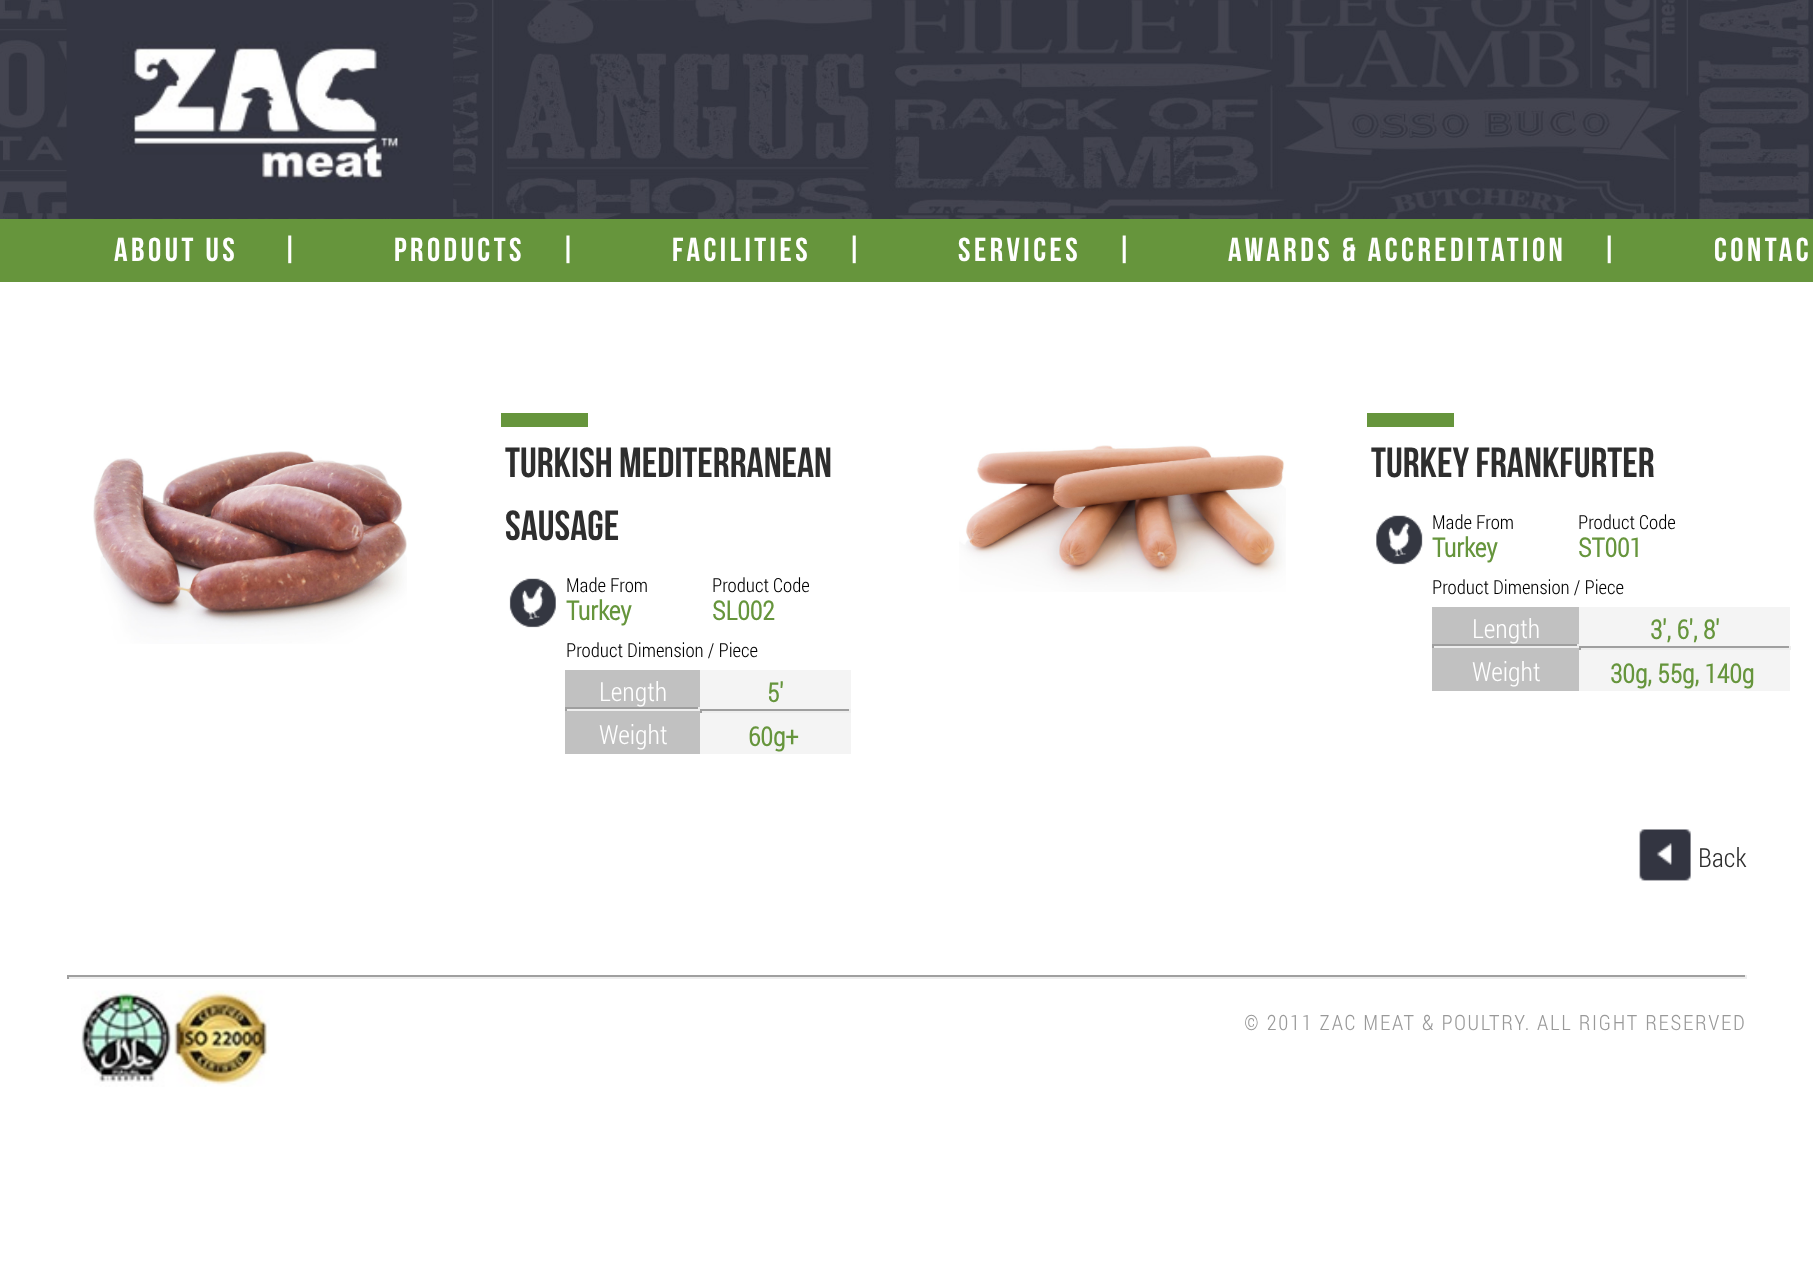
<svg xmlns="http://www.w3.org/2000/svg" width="1813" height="1265">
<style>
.a{font:33.25px Bebas Neue;letter-spacing:3.5px;fill:#fff}
.b{font:42px Bebas Neue;fill:#2e2e2e}
.c{font:300 19.25px Roboto Condensed;fill:#000}
.d{font:bold 26.25px Roboto Condensed;fill:#66953c}
.e{font:300 26.25px Roboto Condensed;fill:#fff}
.f{font:300 26.25px Roboto Condensed;fill:#2e2e2e}
.g{font:300 21px Roboto Condensed;letter-spacing:1.75px;fill:#999}
</style>
<rect width="100%" height="100%" fill="#fff"/>
<image href="1.png" x="0" y="0" width="1813" height="219"/>
<image href="2.png" x="66" y="0" width="388" height="219"/>
<path fill="#66953c" d="M0 219h1813v63H0z"/>
<image href="3.png" x="93" y="451" width="314" height="193"/>
<path fill="#66953c" d="M501 413h87v14H501z"/>
<image href="4.png" x="509" y="578" width="47" height="50"/>
<path fill="#c1c1c1" d="M565 670h135v84H565z"/>
<path fill="#9f9f9f" d="M565 707h135v2H565z"/>
<path fill="#eee" d="M698 707h2v4H698z"/>
<path fill="#eee" d="M565 709h135v2H565z"/>
<path fill="#9f9f9f" d="M565 707h2v4H565z"/>
<path fill="#f4f4f4" d="M700 670h151v39H700z"/>
<path fill="#9f9f9f" d="M700 709h151v2H700z"/>
<path fill="#eee" d="M849 709h2v4H849z"/>
<path fill="#eee" d="M700 711h151v2H700z"/>
<path fill="#9f9f9f" d="M700 709h2v4H700z"/>
<path fill="#f4f4f4" d="M700 713h151v41H700z"/>
<image href="5.png" x="959" y="445" width="327" height="147"/>
<path fill="#66953c" d="M1367 413h87v14H1367z"/>
<image href="6.png" x="1376" y="515" width="47" height="50"/>
<path fill="#c1c1c1" d="M1432 607h147v84H1432z"/>
<path fill="#9f9f9f" d="M1432 644h147v2H1432z"/>
<path fill="#eee" d="M1577 644h2v4H1577z"/>
<path fill="#eee" d="M1432 646h147v2H1432z"/>
<path fill="#9f9f9f" d="M1432 644h2v4H1432z"/>
<path fill="#f4f4f4" d="M1579 607h211v39H1579z"/>
<path fill="#9f9f9f" d="M1579 646h211v2H1579z"/>
<path fill="#eee" d="M1789 646h2v4H1789z"/>
<path fill="#eee" d="M1579 648h211v2H1579z"/>
<path fill="#9f9f9f" d="M1579 646h2v4H1579z"/>
<path fill="#f4f4f4" d="M1579 650h211v41H1579z"/>
<image href="7.png" x="1639" y="829" width="52" height="52"/>
<path fill="#9f9f9f" d="M67 975h1680v2H67z"/>
<path fill="#eee" d="M1745 975h2v4H1745z"/>
<path fill="#eee" d="M67 977h1680v2H67z"/>
<path fill="#9f9f9f" d="M67 975h2v4H67z"/>
<image href="8.png" x="81" y="990" width="189" height="97"/>
<text class="a" xml:space="preserve" x="114" y="261">ABOUT US     |</text>
<text class="a" xml:space="preserve" x="394" y="261">PRODUCTS    |</text>
<text class="a" xml:space="preserve" x="672" y="261">FACILITIES    |</text>
<text class="a" xml:space="preserve" x="958" y="261">SERVICES    |</text>
<text class="a" xml:space="preserve" x="1228" y="261">AWARDS &amp; ACCREDITATION    |</text>
<text class="a" x="1714" y="261">CONTAC</text>
<text class="b" x="505" y="477">TURKISH MEDITERRANEAN</text>
<text class="b" x="505" y="540">SAUSAGE</text>
<text class="c" x="566" y="592">Made From</text>
<text class="d" x="566" y="620">Turkey</text>
<text class="c" x="712" y="592">Product Code</text>
<text class="d" x="712" y="620">SL002</text>
<text class="c" x="566" y="657">Product Dimension / Piece</text>
<text class="e" x="599" y="701">Length</text>
<text class="d" x="767" y="702">5′</text>
<text class="e" x="599" y="744">Weight</text>
<text class="d" x="748" y="746">60g+</text>
<text class="b" x="1371" y="477">TURKEY FRANKFURTER</text>
<text class="c" x="1432" y="529">Made From</text>
<text class="d" x="1432" y="557">Turkey</text>
<text class="c" x="1578" y="529">Product Code</text>
<text class="d" x="1578" y="557">ST001</text>
<text class="c" x="1432" y="594">Product Dimension / Piece</text>
<text class="e" x="1472" y="638">Length</text>
<text class="d" x="1650" y="639">3′, 6′, 8′</text>
<text class="e" x="1472" y="681">Weight</text>
<text class="d" x="1610" y="683">30g, 55g, 140g</text>
<text class="f" x="1698" y="867">Back</text>
<text class="g" x="1244" y="1030">© 2011 ZAC MEAT &amp; POULTRY. ALL RIGHT RESERVED</text>
</svg>
